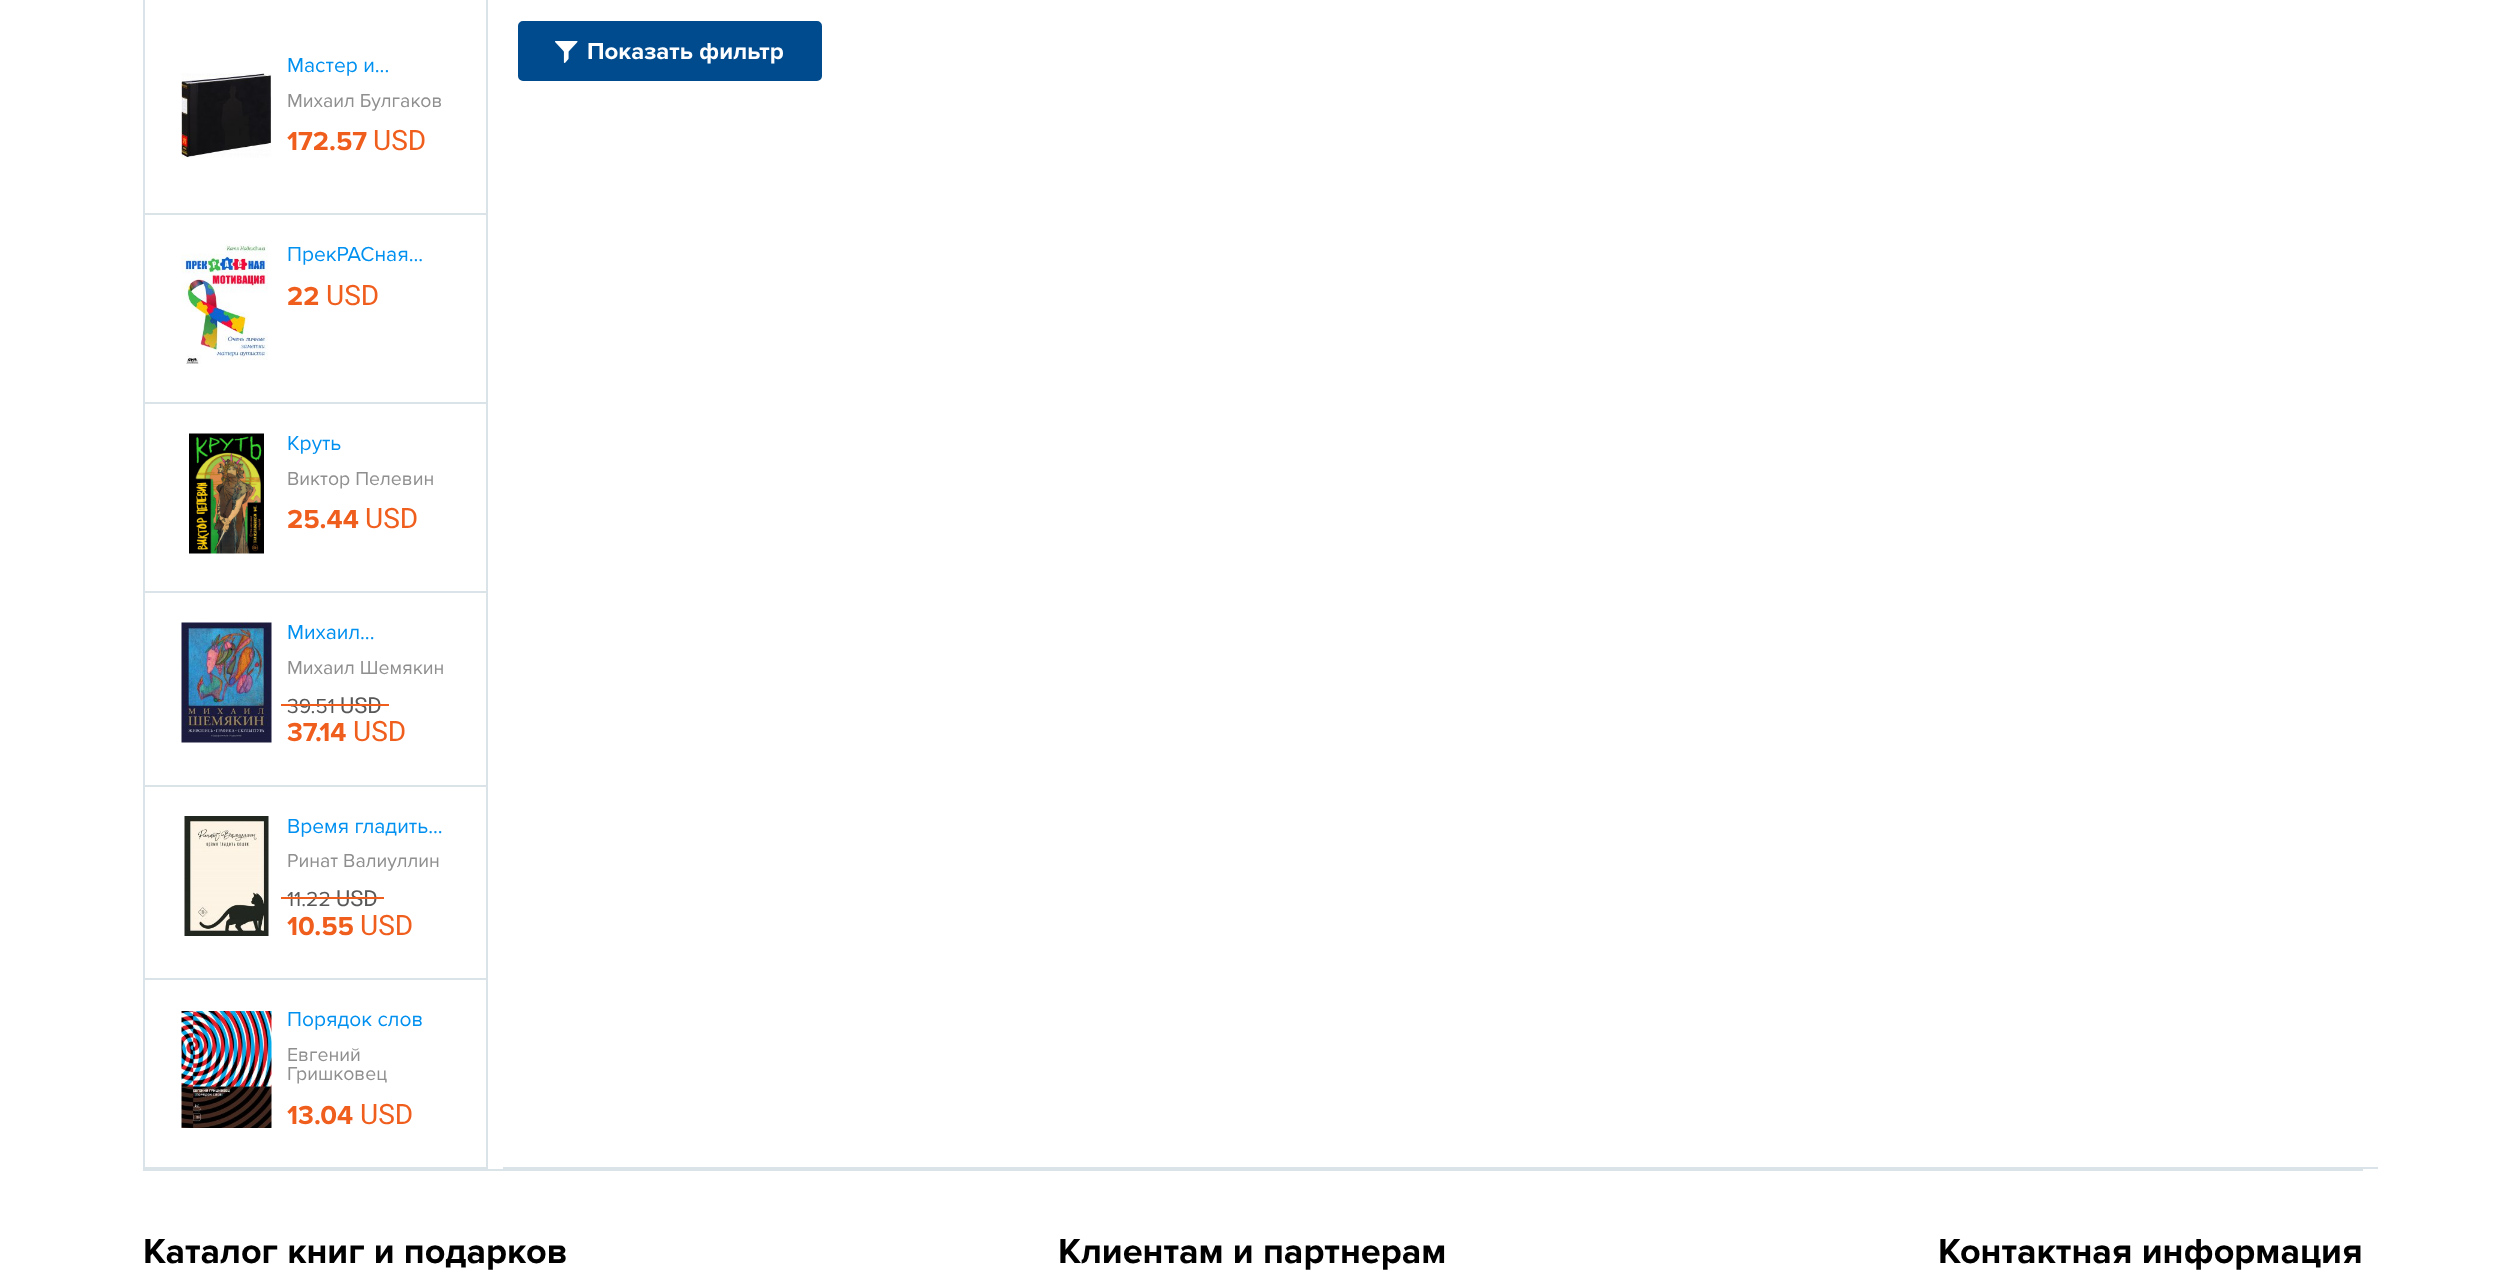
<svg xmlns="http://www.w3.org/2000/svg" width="2504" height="1272">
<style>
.a{font:bold 24px Proxima Nova;fill:#fff}
.b{font:21px Proxima Nova;fill:#0090f0}
.c{font:19.5px Proxima Nova;fill:#8f8f8f}
.d{font:bold 27px Proxima Nova;fill:#f05e1e}
.e{font:28px Roboto;fill:#f05e1e}
.f{font:21px Proxima Nova;fill:#585858}
.g{font:22px Roboto;fill:#585858}
.h{font:bold 36px Proxima Nova;fill:#000}
</style>
<rect width="100%" height="100%" fill="#fff"/>
<path fill="#dae3e8" d="M503 1167h1875v2H503z"/>
<rect fill="#004b8d" stroke="#004b8d" stroke-width="2" x="519" y="22" width="302" height="58" rx="4"/>
<image href="1.png" x="555" y="41" width="23" height="22"/>
<path fill="none" stroke="#dae3e8" stroke-width="2" d="M144 -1h343v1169H144z"/>
<image href="2.png" x="181" y="73" width="91" height="85"/>
<path fill="#dae3e8" d="M144 213h342v2H144z"/>
<image href="3.png" x="181" y="244" width="87" height="120"/>
<path fill="#dae3e8" d="M144 402h342v2H144z"/>
<image href="4.png" x="189" y="433" width="75" height="121"/>
<path fill="#dae3e8" d="M144 591h342v2H144z"/>
<image href="5.png" x="181" y="622" width="91" height="121"/>
<path fill="#dae3e8" d="M144 785h342v2H144z"/>
<image href="6.png" x="184" y="816" width="85" height="120"/>
<path fill="#dae3e8" d="M144 978h342v2H144z"/>
<image href="7.png" x="181" y="1011" width="91" height="117"/>
<path fill="#dae3e8" d="M143 1169h2220v2H143z"/>
<text class="a" x="587" y="59">Показать фильтр</text>
<text class="b" x="287" y="72">Мастер и...</text>
<text class="c" x="287" y="107">Михаил Булгаков</text>
<text class="d" x="287" y="150">172.57</text>
<text class="e" x="373" y="150">USD</text>
<text class="b" x="287" y="261">ПрекРАСная...</text>
<text class="d" x="287" y="305">22</text>
<text class="e" x="326" y="305">USD</text>
<text class="b" x="287" y="450">Круть</text>
<text class="c" x="287" y="485">Виктор Пелевин</text>
<text class="d" x="287" y="528">25.44</text>
<text class="e" x="365" y="528">USD</text>
<text class="b" x="287" y="639">Михаил...</text>
<text class="c" x="287" y="674">Михаил Шемякин</text>
<text class="f" x="287" y="713">39.51</text>
<text class="g" x="340" y="713">USD</text>
<path fill="#f05e1e" d="M281 704h108v2H281z"/>
<text class="d" x="287" y="741">37.14</text>
<text class="e" x="353" y="741">USD</text>
<text class="b" x="287" y="833">Время гладить...</text>
<text class="c" x="287" y="867">Ринат Валиуллин</text>
<text class="f" x="287" y="906">11.22</text>
<text class="g" x="336" y="906">USD</text>
<path fill="#f05e1e" d="M281 897h103v2H281z"/>
<text class="d" x="287" y="935">10.55</text>
<text class="e" x="360" y="935">USD</text>
<text class="b" x="287" y="1026">Порядок слов</text>
<text class="c" x="287" y="1061">Евгений</text>
<text class="c" x="287" y="1080">Гришковец</text>
<text class="d" x="287" y="1124">13.04</text>
<text class="e" x="360" y="1124">USD</text>
<text class="h" x="143" y="1263">Каталог книг и подарков</text>
<text class="h" x="1058" y="1263">Клиентам и партнерам</text>
<text class="h" x="1938" y="1263">Контактная информация</text>
</svg>
